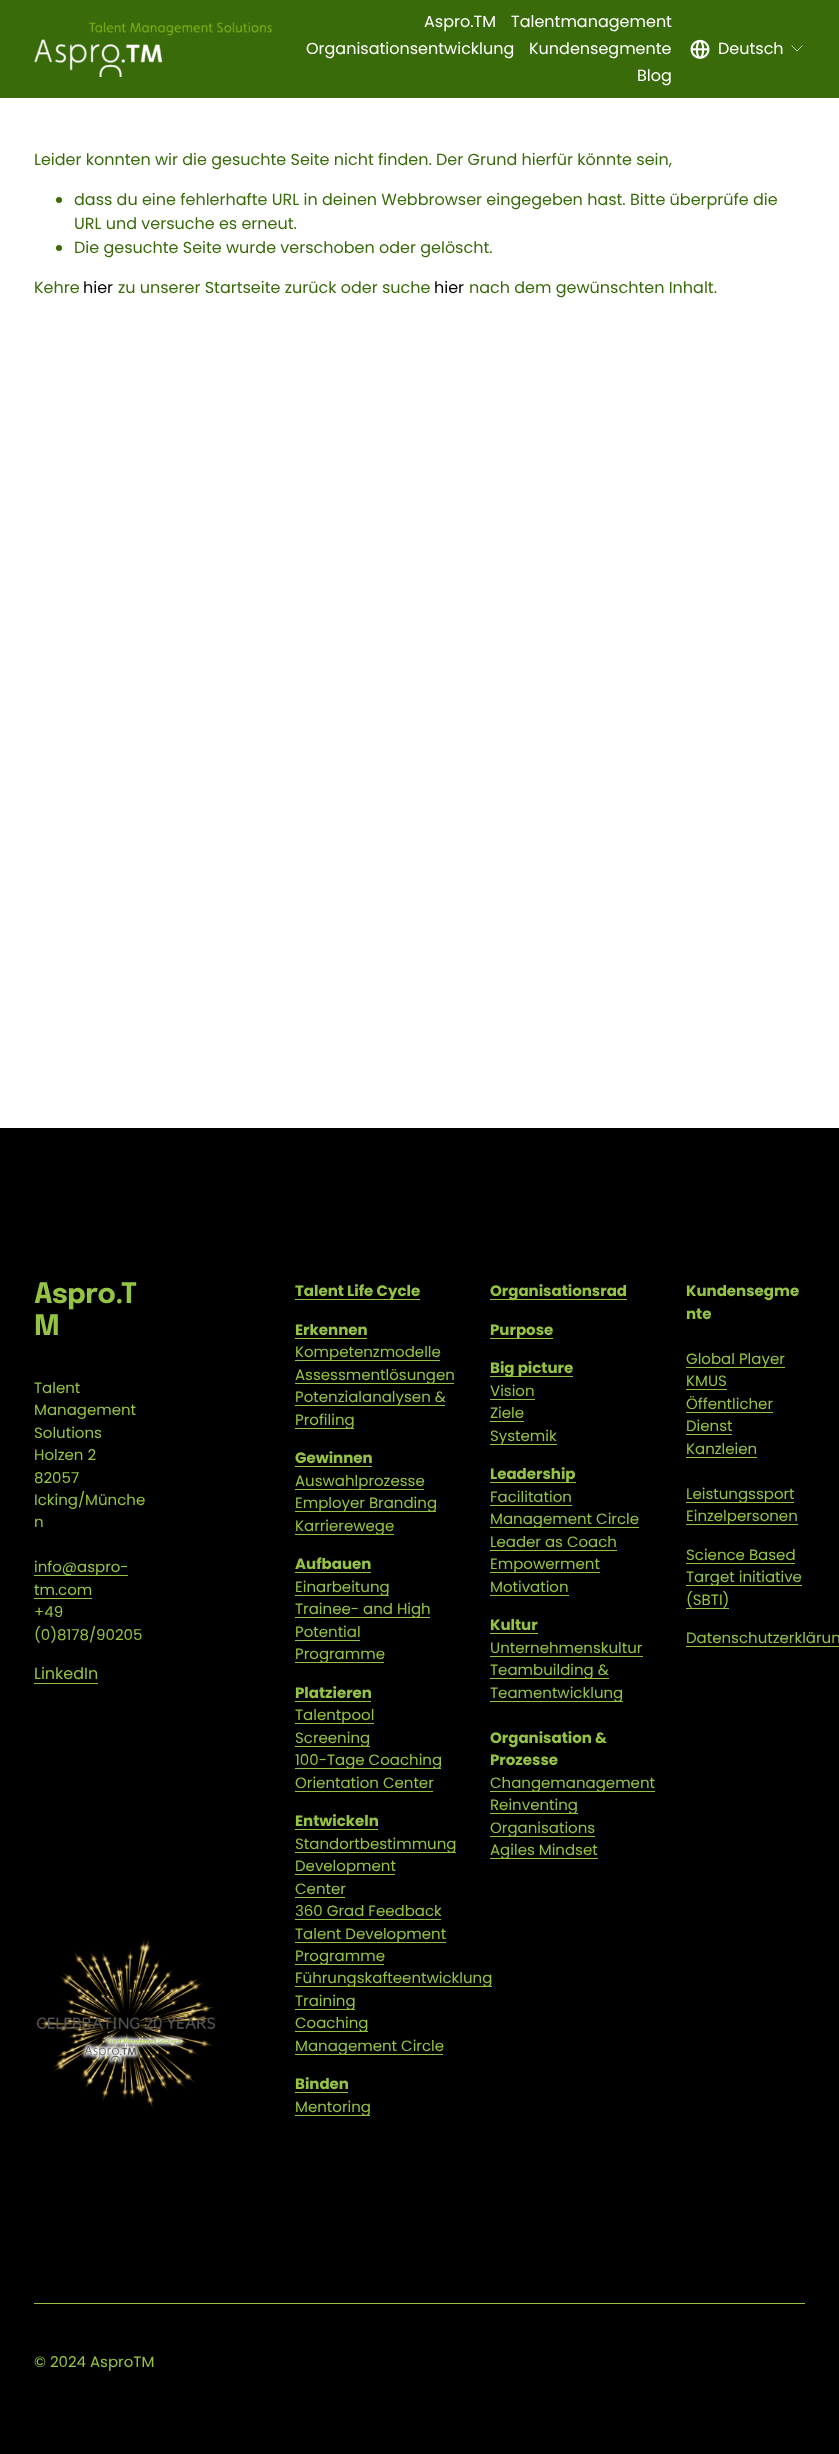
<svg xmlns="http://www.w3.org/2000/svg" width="839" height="2454">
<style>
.a{font:16px Poppins;fill:#fff}
.b{font:16px Poppins;fill:#396b0b}
.c{font:16px Poppins;fill:#000}
.d{font:bold 28px Epilogue;letter-spacing:-0.5px;fill:#95c343}
.e{font:15px Poppins;fill:#95c343}
.f{font:16px Poppins;fill:#95c343}
.g{font:bold 15px Poppins;fill:#95c343}
</style>
<rect width="100%" height="100%" fill="#fff"/>
<path fill="#396b0b" d="M0 0h839v98H0z"/>
<image href="1.png" x="34" y="22" width="238" height="55"/>
<image href="2.png" x="690" y="39" width="20" height="20"/>
<path fill="none" stroke="#fff" stroke-width="0.7" stroke-linecap="square" d="M802 46l-5 5l-5-5"/>
<circle fill="#396b0b" cx="59" cy="200" r="3"/>
<circle fill="#396b0b" cx="59" cy="248" r="3"/>
<path fill="#000" d="M0 1128h839v1326H0z"/>
<path fill="#95c343" d="M34 1575h94v1H34z"/>
<path fill="#95c343" d="M34 1598h58v1H34z"/>
<path fill="#95c343" d="M34 1683h64v1H34z"/>
<path fill="#95c343" d="M295 1299h125v1H295z"/>
<path fill="#95c343" d="M295 1338h72v1H295z"/>
<path fill="#95c343" d="M295 1360h145v1H295z"/>
<path fill="#95c343" d="M295 1383h159v1H295z"/>
<path fill="#95c343" d="M295 1405h150v1H295z"/>
<path fill="#95c343" d="M295 1428h59v1H295z"/>
<path fill="#95c343" d="M295 1466h77v1H295z"/>
<path fill="#95c343" d="M295 1489h129v1H295z"/>
<path fill="#95c343" d="M295 1511h141v1H295z"/>
<path fill="#95c343" d="M295 1534h99v1H295z"/>
<path fill="#95c343" d="M295 1572h76v1H295z"/>
<path fill="#95c343" d="M295 1595h94v1H295z"/>
<path fill="#95c343" d="M295 1617h135v1H295z"/>
<path fill="#95c343" d="M295 1640h65v1H295z"/>
<path fill="#95c343" d="M295 1662h89v1H295z"/>
<path fill="#95c343" d="M295 1701h76v1H295z"/>
<path fill="#95c343" d="M295 1723h79v1H295z"/>
<path fill="#95c343" d="M295 1746h75v1H295z"/>
<path fill="#95c343" d="M295 1768h146v1H295z"/>
<path fill="#95c343" d="M295 1791h138v1H295z"/>
<path fill="#95c343" d="M295 1829h83v1H295z"/>
<path fill="#95c343" d="M295 1852h161v1H295z"/>
<path fill="#95c343" d="M295 1874h100v1H295z"/>
<path fill="#95c343" d="M295 1897h50v1H295z"/>
<path fill="#95c343" d="M295 1919h146v1H295z"/>
<path fill="#95c343" d="M295 1942h151v1H295z"/>
<path fill="#95c343" d="M295 1964h89v1H295z"/>
<path fill="#95c343" d="M295 1986h197v1H295z"/>
<path fill="#95c343" d="M295 2009h60v1H295z"/>
<path fill="#95c343" d="M295 2031h73v1H295z"/>
<path fill="#95c343" d="M295 2054h148v1H295z"/>
<path fill="#95c343" d="M295 2092h53v1H295z"/>
<path fill="#95c343" d="M295 2115h75v1H295z"/>
<path fill="#95c343" d="M490 1299h137v1H490z"/>
<path fill="#95c343" d="M490 1338h63v1H490z"/>
<path fill="#95c343" d="M490 1376h83v1H490z"/>
<path fill="#95c343" d="M490 1399h45v1H490z"/>
<path fill="#95c343" d="M490 1421h34v1H490z"/>
<path fill="#95c343" d="M490 1444h67v1H490z"/>
<path fill="#95c343" d="M490 1482h86v1H490z"/>
<path fill="#95c343" d="M490 1505h82v1H490z"/>
<path fill="#95c343" d="M490 1527h149v1H490z"/>
<path fill="#95c343" d="M490 1550h127v1H490z"/>
<path fill="#95c343" d="M490 1572h110v1H490z"/>
<path fill="#95c343" d="M490 1595h79v1H490z"/>
<path fill="#95c343" d="M490 1633h48v1H490z"/>
<path fill="#95c343" d="M490 1656h153v1H490z"/>
<path fill="#95c343" d="M490 1678h119v1H490z"/>
<path fill="#95c343" d="M490 1701h133v1H490z"/>
<path fill="#95c343" d="M490 1791h165v1H490z"/>
<path fill="#95c343" d="M490 1813h88v1H490z"/>
<path fill="#95c343" d="M490 1836h105v1H490z"/>
<path fill="#95c343" d="M490 1858h108v1H490z"/>
<path fill="#95c343" d="M686 1367h99v1H686z"/>
<path fill="#95c343" d="M686 1389h41v1H686z"/>
<path fill="#95c343" d="M686 1412h87v1H686z"/>
<path fill="#95c343" d="M686 1434h46v1H686z"/>
<path fill="#95c343" d="M686 1457h71v1H686z"/>
<path fill="#95c343" d="M686 1502h108v1H686z"/>
<path fill="#95c343" d="M686 1524h112v1H686z"/>
<path fill="#95c343" d="M686 1563h109v1H686z"/>
<path fill="#95c343" d="M686 1585h116v1H686z"/>
<path fill="#95c343" d="M686 1608h43v1H686z"/>
<path fill="#95c343" d="M686 1646h153v1H686z"/>
<image href="3.png" x="36" y="1938" width="179" height="171"/>
<path fill="#95c343" d="M34 2303h771v1H34z"/>
<text class="a" x="424" y="27">Aspro.TM</text>
<text class="a" x="511" y="27">Talentmanagement</text>
<text class="a" x="306" y="54">Organisationsentwicklung</text>
<text class="a" x="529" y="54">Kundensegmente</text>
<text class="a" x="637" y="81">Blog</text>
<text class="a" x="718" y="54">Deutsch</text>
<text class="b" x="34" y="165">Leider konnten wir die gesuchte Seite nicht finden. Der Grund hierfür könnte sein,</text>
<text class="b" x="74" y="205">dass du eine fehlerhafte URL in deinen Webbrowser eingegeben hast. Bitte überprüfe die</text>
<text class="b" x="74" y="229">URL und versuche es erneut.</text>
<text class="b" x="74" y="253">Die gesuchte Seite wurde verschoben oder gelöscht.</text>
<text class="b" x="34" y="293">Kehre</text>
<text class="c" x="83" y="293">hier</text>
<text class="b" x="118" y="293">zu unserer Startseite zurück oder suche</text>
<text class="c" x="434" y="293">hier</text>
<text class="b" x="469" y="293">nach dem gewünschten Inhalt.</text>
<text class="d" x="34" y="1303">Aspro.T</text>
<text class="d" x="34" y="1335">M</text>
<text class="e" x="34" y="1393">Talent</text>
<text class="e" x="34" y="1415">Management</text>
<text class="e" x="34" y="1438">Solutions</text>
<text class="e" x="34" y="1460">Holzen 2</text>
<text class="e" x="34" y="1483">82057</text>
<text class="e" x="34" y="1505">Icking/Münche</text>
<text class="e" x="34" y="1527">n</text>
<text class="e" x="34" y="1572">info@aspro-</text>
<text class="e" x="34" y="1595">tm.com</text>
<text class="e" x="34" y="1617">+49</text>
<text class="e" x="34" y="1640">(0)8178/90205</text>
<text class="f" x="34" y="1679">LinkedIn</text>
<text class="g" x="295" y="1296">Talent Life Cycle</text>
<text class="g" x="295" y="1335">Erkennen</text>
<text class="e" x="295" y="1357">Kompetenzmodelle</text>
<text class="e" x="295" y="1380">Assessmentlösungen</text>
<text class="e" x="295" y="1402">Potenzialanalysen &amp;</text>
<text class="e" x="295" y="1425">Profiling</text>
<text class="g" x="295" y="1463">Gewinnen</text>
<text class="e" x="295" y="1486">Auswahlprozesse</text>
<text class="e" x="295" y="1508">Employer Branding</text>
<text class="e" x="295" y="1531">Karrierewege</text>
<text class="g" x="295" y="1569">Aufbauen</text>
<text class="e" x="295" y="1592">Einarbeitung</text>
<text class="e" x="295" y="1614">Trainee- and High</text>
<text class="e" x="295" y="1637">Potential</text>
<text class="e" x="295" y="1659">Programme</text>
<text class="g" x="295" y="1698">Platzieren</text>
<text class="e" x="295" y="1720">Talentpool</text>
<text class="e" x="295" y="1743">Screening</text>
<text class="e" x="295" y="1765">100-Tage Coaching</text>
<text class="e" x="295" y="1788">Orientation Center</text>
<text class="g" x="295" y="1826">Entwickeln</text>
<text class="e" x="295" y="1849">Standortbestimmung</text>
<text class="e" x="295" y="1871">Development</text>
<text class="e" x="295" y="1894">Center</text>
<text class="e" x="295" y="1916">360 Grad Feedback</text>
<text class="e" x="295" y="1939">Talent Development</text>
<text class="e" x="295" y="1961">Programme</text>
<text class="e" x="295" y="1983">Führungskafteentwicklung</text>
<text class="e" x="295" y="2006">Training</text>
<text class="e" x="295" y="2028">Coaching</text>
<text class="e" x="295" y="2051">Management Circle</text>
<text class="g" x="295" y="2089">Binden</text>
<text class="e" x="295" y="2112">Mentoring</text>
<text class="g" x="490" y="1296">Organisationsrad</text>
<text class="g" x="490" y="1335">Purpose</text>
<text class="g" x="490" y="1373">Big picture</text>
<text class="e" x="490" y="1396">Vision</text>
<text class="e" x="490" y="1418">Ziele</text>
<text class="e" x="490" y="1441">Systemik</text>
<text class="g" x="490" y="1479">Leadership</text>
<text class="e" x="490" y="1502">Facilitation</text>
<text class="e" x="490" y="1524">Management Circle</text>
<text class="e" x="490" y="1547">Leader as Coach</text>
<text class="e" x="490" y="1569">Empowerment</text>
<text class="e" x="490" y="1592">Motivation</text>
<text class="g" x="490" y="1630">Kultur</text>
<text class="e" x="490" y="1653">Unternehmenskultur</text>
<text class="e" x="490" y="1675">Teambuilding &amp;</text>
<text class="e" x="490" y="1698">Teamentwicklung</text>
<text class="g" x="490" y="1743">Organisation &amp;</text>
<text class="g" x="490" y="1765">Prozesse</text>
<text class="e" x="490" y="1788">Changemanagement</text>
<text class="e" x="490" y="1810">Reinventing</text>
<text class="e" x="490" y="1833">Organisations</text>
<text class="e" x="490" y="1855">Agiles Mindset</text>
<text class="g" x="686" y="1296">Kundensegme</text>
<text class="g" x="686" y="1319">nte</text>
<text class="e" x="686" y="1364">Global Player</text>
<text class="e" x="686" y="1386">KMUS</text>
<text class="e" x="686" y="1409">Öffentlicher</text>
<text class="e" x="686" y="1431">Dienst</text>
<text class="e" x="686" y="1454">Kanzleien</text>
<text class="e" x="686" y="1499">Leistungssport</text>
<text class="e" x="686" y="1521">Einzelpersonen</text>
<text class="e" x="686" y="1560">Science Based</text>
<text class="e" x="686" y="1582">Target initiative</text>
<text class="e" x="686" y="1605">(SBTI)</text>
<text class="e" x="686" y="1643">Datenschutzerklärun</text>
<text class="e" x="34" y="2367">© 2024 AsproTM</text>
</svg>
